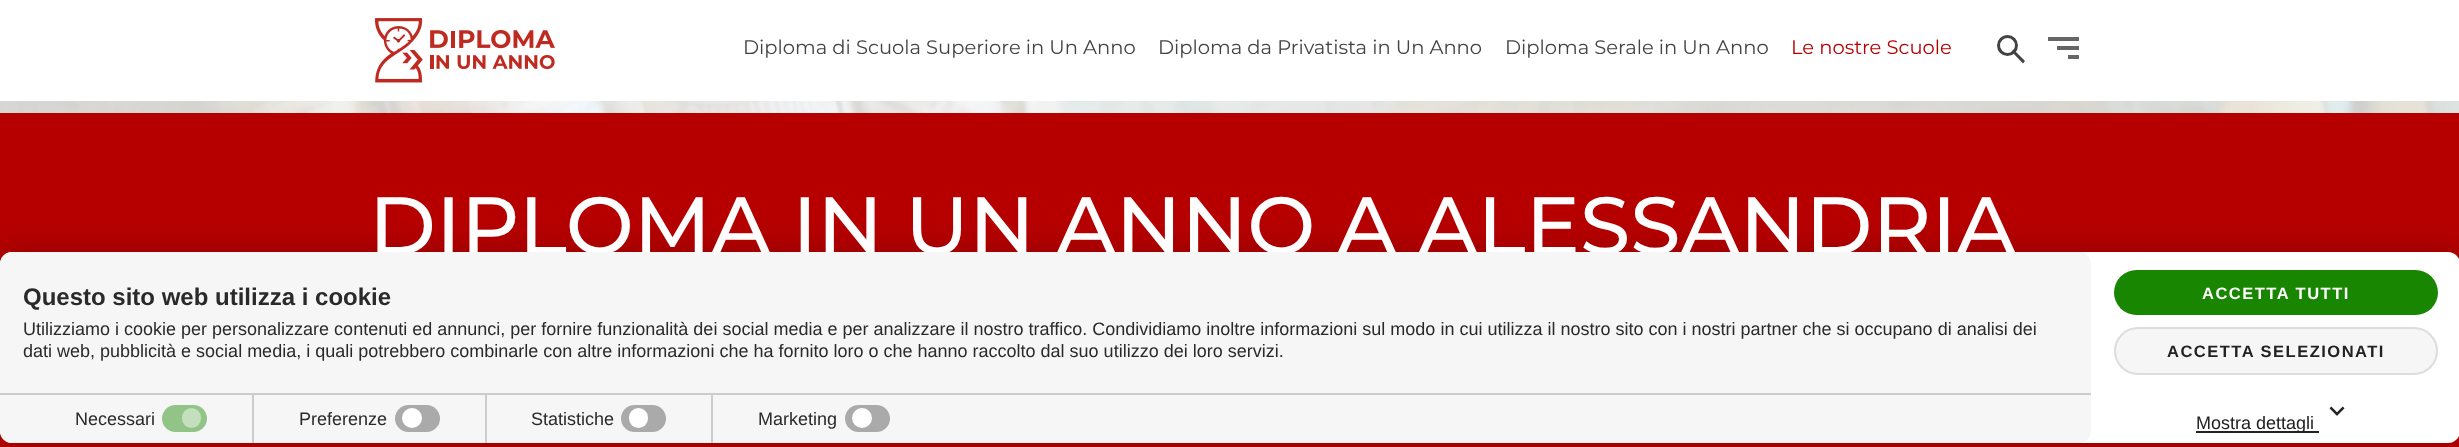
<svg xmlns="http://www.w3.org/2000/svg" width="2459" height="447">
<style>
.a{font:19.5px Montserrat;fill:#434343}
.b{font:19.5px Montserrat;fill:#b60000}
.c{font:500 81px Montserrat;fill:#fff}
.d{font:bold 24px Liberation Sans;fill:#2a2a2a}
.e{font:18px Liberation Sans;fill:#2a2a2a}
.f{font:bold 16.5px Liberation Sans;letter-spacing:1.5px;fill:#fff}
.g{font:bold 16.5px Liberation Sans;letter-spacing:1.5px;fill:#222}
.h{font:18px Liberation Sans;fill:#222}
</style>
<rect width="100%" height="100%" fill="#fff"/>
<image href="1.png" x="375" y="18" width="180" height="65"/>
<circle fill="none" stroke="#434343" stroke-width="3" cx="2007.5" cy="45.5" r="9"/>
<path fill="#434343" d="M2013.5 49.5l11.5 11.5l-2 2.5l-11.5-12z"/>
<path fill="#666" d="M2048 37h31v4H2048z"/>
<path fill="#666" d="M2057 46h22v4H2057z"/>
<path fill="#666" d="M2068 55h11v4H2068z"/>
<image href="2.png" x="0" y="101" width="2459" height="12"/>
<path fill="#b60000" d="M0 113h2459v334H0z"/>
<rect fill="#00000033" filter="blur(15px)" x="-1" y="251" width="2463" height="193" rx="14"/>
<rect fill="#fff" y="252" width="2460" height="191" rx="12"/>
<rect fill="#188600" x="2114" y="270" width="324" height="45" rx="22.5"/>
<rect fill="#f6f6f6" stroke="#ddd" stroke-width="2" x="2115" y="328" width="322" height="46" rx="23"/>
<path fill="#f6f6f6" d="M0 393h2091v38c0 6.5-5.5 12-12 12h-2067c-6.5 0-12-5.5-12-12z"/>
<path fill="#ccc" d="M0 393h2091v2H0z"/>
<path fill="#ccc" d="M252 395h2v48H252z"/>
<rect fill="#92c487" x="162" y="405" width="45" height="27" rx="13.5"/>
<rect fill="#c3dfbd" x="182" y="408" width="19" height="20" rx="9.5"/>
<path fill="#ccc" d="M485 395h2v48H485z"/>
<rect fill="#aaa" x="395" y="405" width="45" height="27" rx="13.5"/>
<circle fill="#fff" cx="412" cy="418" r="10"/>
<path fill="#ccc" d="M711 395h2v48H711z"/>
<rect fill="#aaa" x="621" y="405" width="45" height="27" rx="13.5"/>
<rect fill="#fff" x="629" y="408" width="19" height="20" rx="9.5"/>
<rect fill="#aaa" x="845" y="405" width="45" height="27" rx="13.5"/>
<circle fill="#fff" cx="862" cy="418" r="10"/>
<image href="3.png" x="2329" y="406" width="16" height="10"/>
<path fill="#222" d="M2196 431h123v2H2196z"/>
<text class="a" x="743" y="54">Diploma di Scuola Superiore in Un Anno</text>
<text class="a" x="1158" y="54">Diploma da Privatista in Un Anno</text>
<text class="a" x="1505" y="54">Diploma Serale in Un Anno</text>
<text class="b" x="1791" y="54">Le nostre Scuole</text>
<text class="c" x="369" y="254">DIPLOMA IN UN ANNO A ALESSANDRIA</text>
<path fill="#f6f6f6" d="M12 252h2067c6.5 0 12 5.5 12 12v129h-2091v-129c0-6.5 5.5-12 12-12z"/>
<text class="d" x="23" y="305">Questo sito web utilizza i cookie</text>
<text class="e" x="23" y="335">Utilizziamo i cookie per personalizzare contenuti ed annunci, per fornire funzionalità dei social media e per analizzare il nostro traffico. Condividiamo inoltre informazioni sul modo in cui utilizza il nostro sito con i nostri partner che si occupano di analisi dei</text>
<text class="e" x="23" y="357">dati web, pubblicità e social media, i quali potrebbero combinarle con altre informazioni che ha fornito loro o che hanno raccolto dal suo utilizzo dei loro servizi.</text>
<text class="f" x="2202" y="299">ACCETTA TUTTI</text>
<text class="g" x="2167" y="357">ACCETTA SELEZIONATI</text>
<text class="e" x="75" y="425">Necessari</text>
<text class="e" x="299" y="425">Preferenze</text>
<text class="e" x="531" y="425">Statistiche</text>
<text class="e" x="758" y="425">Marketing</text>
<text class="h" x="2196" y="429">Mostra dettagli</text>
</svg>
